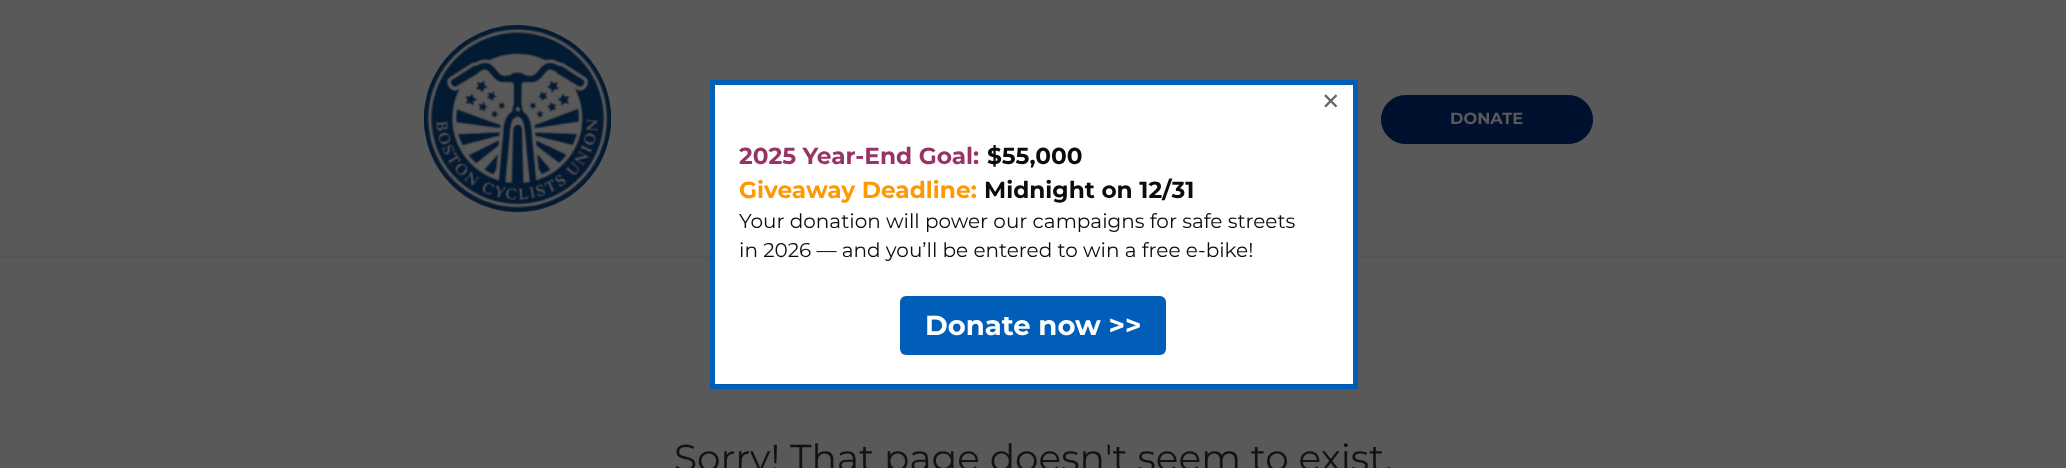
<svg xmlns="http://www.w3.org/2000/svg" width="2066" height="468">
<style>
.a{font:37.5px Montserrat;fill:#666}
.b{font:bold 23.25px Montserrat;fill:#936}
.c{font:bold 23.25px Montserrat;fill:#0c0c0c}
.d{font:bold 23.25px Montserrat;fill:#f90}
.e{font:20px Montserrat;fill:#0c0c0c}
.f{font:bold 27.5px Montserrat;fill:#fff}
.g{font:bold 16.25px Montserrat;fill:#595959}
.h{font:37.5px Montserrat;fill:#121212}
</style>
<rect width="100%" height="100%" fill="#555"/>
<path fill="#595959" d="M0 0h2066v256H0z"/>
<path fill="#595959" d="M0 258h2066v210H0z"/>
<path fill="none" stroke="#005eb8" stroke-width="5" d="M712.5 82.5h643v304H712.5z"/>
<path fill="#fff" d="M715 85h638v299H715z"/>
<rect fill="#005eb8" x="900" y="296" width="266" height="59" rx="6"/>
<image href="1.png" x="423" y="25" width="189" height="188"/>
<rect fill="#00112f" stroke="#000d2b" x="1381.5" y="95.5" width="211" height="48" rx="24"/>
<text class="a" x="1320" y="114">×</text>
<text class="b" x="739" y="164">2025 Year-End Goal:</text>
<text class="c" x="987" y="164">$55,000</text>
<text class="d" x="739" y="198">Giveaway Deadline:</text>
<text class="c" x="984" y="198">Midnight on 12/31</text>
<text class="e" x="739" y="228">Your donation will power our campaigns for safe streets</text>
<text class="e" x="739" y="257">in 2026 — and you’ll be entered to win a free e-bike!</text>
<text class="f" x="925" y="335">Donate now &gt;&gt;</text>
<text class="g" x="1450" y="124">DONATE</text>
<text class="h" x="674" y="471">Sorry! That page doesn't seem to exist.</text>
</svg>
